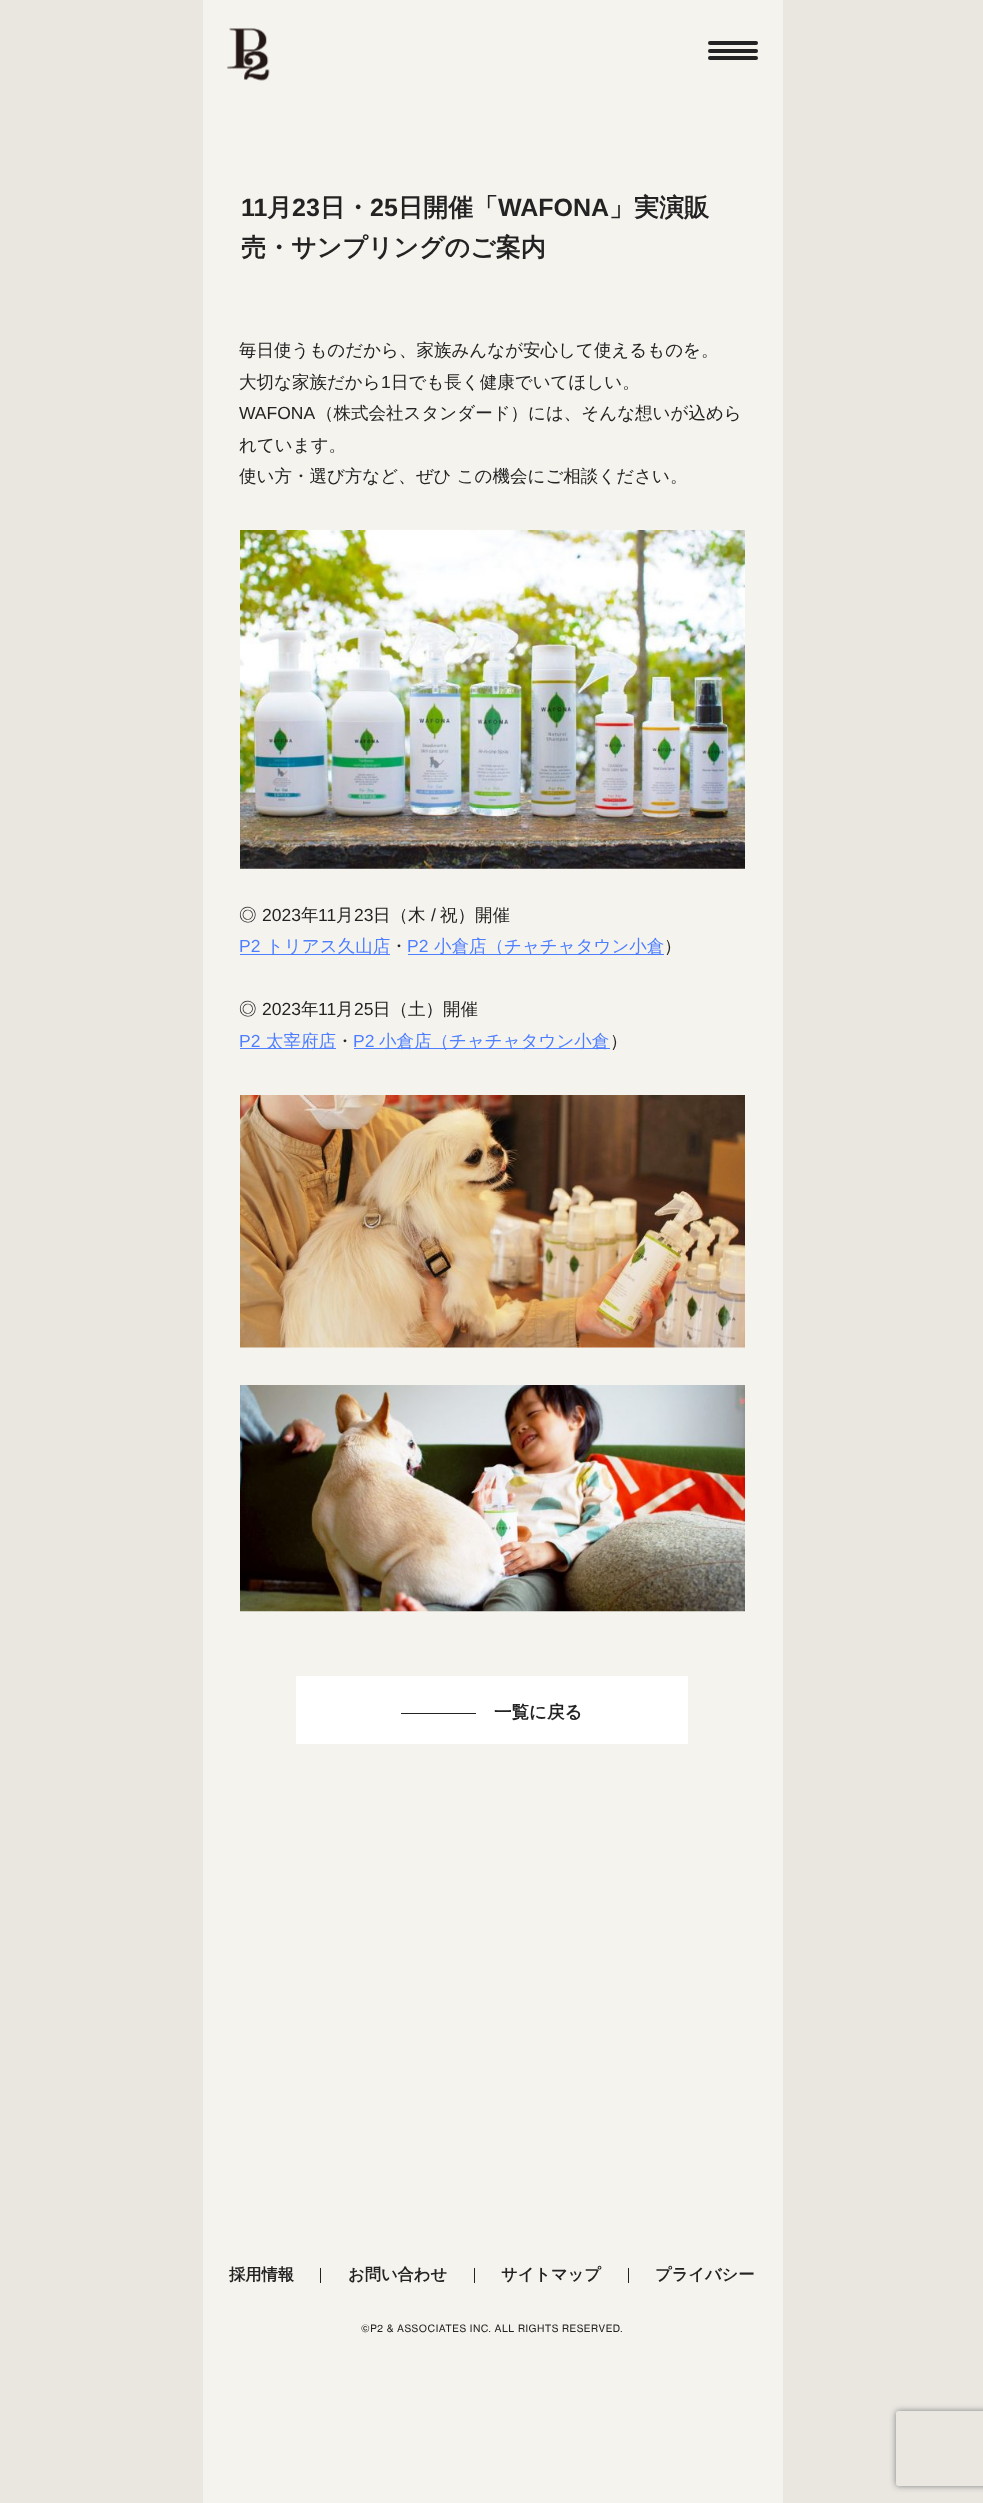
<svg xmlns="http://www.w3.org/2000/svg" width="983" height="2503">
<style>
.a{font:bold 25px Liberation Sans;fill:#232323}
.b{font:bold 25px WenQuanYi Zen Hei;fill:#232323}
.c{font:500 17.5px WenQuanYi Zen Hei;fill:#232323}
.d{font:17.5px Liberation Sans;fill:#232323}
.e{font:17.5px Liberation Sans;fill:#4d7eff}
.f{font:500 17.5px WenQuanYi Zen Hei;fill:#4d7eff}
.g{font:bold 17.5px WenQuanYi Zen Hei;fill:#232323}
.h{font:bold 16.25px WenQuanYi Zen Hei;fill:#232323}
.i{font:10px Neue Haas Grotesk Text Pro;letter-spacing:0.5px;fill:#232323}
</style>
<defs>
<clipPath id="clip1"><path d="M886 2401h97v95h-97zm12.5 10h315c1.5 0 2.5 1 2.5 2.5v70c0 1.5-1 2.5-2.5 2.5h-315c-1.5 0-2.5-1-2.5-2.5v-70c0-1.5 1-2.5 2.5-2.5z" clip-rule="evenodd"/></clipPath>
</defs>
<rect width="100%" height="100%" fill="#eae7e1"/>
<path fill="#f5f3ee" d="M203 0h580v2503H203z"/>
<image href="1.png" x="227" y="28" width="43" height="53"/>
<rect fill="#232323" x="708" y="41" width="50" height="4" rx="2"/>
<rect fill="#232323" x="708" y="49" width="50" height="4" rx="2"/>
<rect fill="#232323" x="708" y="56" width="50" height="4" rx="2"/>
<image href="2.png" x="240" y="530" width="505" height="339"/>
<path fill="#4d7eff" d="M240 954h150v1H240z"/>
<path fill="#4d7eff" d="M408 954h256v1H408z"/>
<path fill="#4d7eff" d="M240 1048h96v1H240z"/>
<path fill="#4d7eff" d="M354 1048h256v1H354z"/>
<image href="3.png" x="240" y="1095" width="505" height="253"/>
<image href="4.png" x="240" y="1385" width="505" height="227"/>
<path fill="#fff" d="M296 1676h392v68H296z"/>
<path fill="#232323" d="M401 1713h75v1H401z"/>
<path fill="#232323" d="M320 2268h1v15H320z"/>
<path fill="#232323" d="M474 2268h1v15H474z"/>
<path fill="#232323" d="M628 2268h1v15H628z"/>
<g clip-path="url(#clip1)">
<rect fill="#808080" filter="blur(3px)" x="896" y="2411" width="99" height="75" rx="2.5"/>
</g>
<text class="a" x="241" y="216">11</text>
<text class="b" x="267" y="216">月</text>
<text class="a" x="292" y="216">23</text>
<text class="b" x="320" y="216">日・</text>
<text class="a" x="370" y="216">25</text>
<text class="b" x="398" y="216">日開催「</text>
<text class="a" x="498" y="216">WAFONA</text>
<text class="b" x="609" y="216">」実演販</text>
<text class="b" x="241" y="256">売・サンプリングのご案内</text>
<text class="c" x="239" y="356">毎日使うものだから、家族みんなが安心して使えるものを。</text>
<text class="c" x="239" y="388">大切な家族だから</text>
<text class="d" x="381" y="388">1</text>
<text class="c" x="391" y="388">日でも長く健康でいてほしい。</text>
<text class="d" x="239" y="419">WAFONA</text>
<text class="c" x="316" y="419">（株式会社スタンダード）には、そんな想いが込めら</text>
<text class="c" x="239" y="451">れています。</text>
<text class="c" x="239" y="482">使い方・選び方など、ぜひ この機会にご相談ください。</text>
<text class="c" x="239" y="921">◎</text>
<text class="d" x="262" y="921">2023</text>
<text class="c" x="301" y="921">年</text>
<text class="d" x="318" y="921">11</text>
<text class="c" x="336" y="921">月</text>
<text class="d" x="354" y="921">23</text>
<text class="c" x="373" y="921">日（木</text>
<text class="d" x="431" y="921">/</text>
<text class="c" x="440" y="921">祝）開催</text>
<text class="e" x="239" y="952">P2</text>
<text class="f" x="266" y="952">トリアス久山店</text>
<text class="c" x="390" y="952">・</text>
<text class="e" x="407" y="952">P2</text>
<text class="f" x="434" y="952">小倉店（チャチャタウン小倉</text>
<text class="c" x="664" y="952">）</text>
<text class="c" x="239" y="1015">◎</text>
<text class="d" x="262" y="1015">2023</text>
<text class="c" x="301" y="1015">年</text>
<text class="d" x="318" y="1015">11</text>
<text class="c" x="336" y="1015">月</text>
<text class="d" x="354" y="1015">25</text>
<text class="c" x="373" y="1015">日（土）開催</text>
<text class="e" x="239" y="1047">P2</text>
<text class="f" x="266" y="1047">太宰府店</text>
<text class="c" x="336" y="1047">・</text>
<text class="e" x="353" y="1047">P2</text>
<text class="f" x="379" y="1047">小倉店（チャチャタウン小倉</text>
<text class="c" x="610" y="1047">）</text>
<text class="g" x="494" y="1718">一覧に戻る</text>
<text class="h" x="229" y="2280">採用情報</text>
<text class="h" x="348" y="2280">お問い合わせ</text>
<text class="h" x="501" y="2280">サイトマップ</text>
<text class="h" x="655" y="2280">プライバシー</text>
<text class="i" x="361" y="2332">©P2 &amp; ASSOCIATES INC. ALL RIGHTS RESERVED.</text>
</svg>
